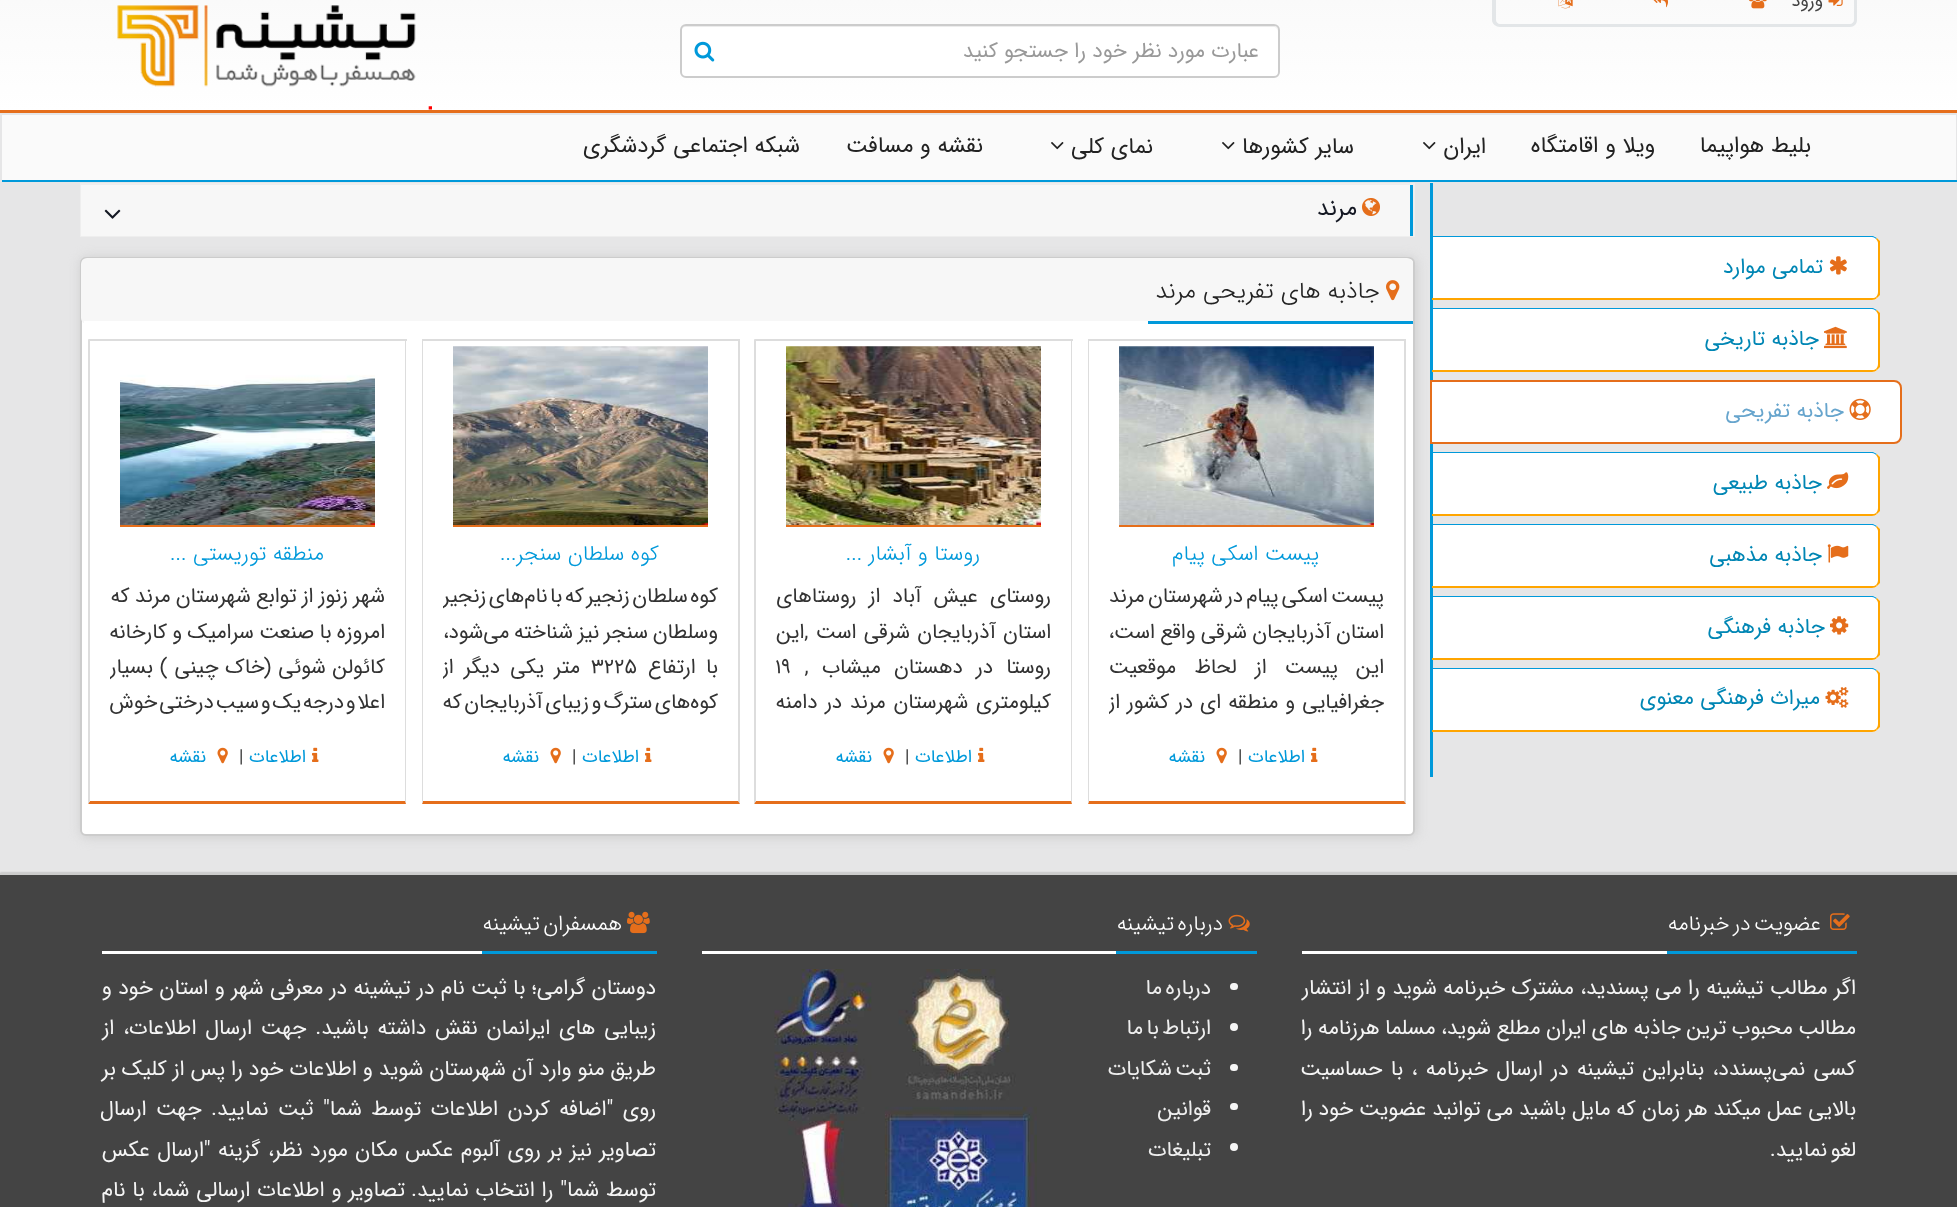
<svg xmlns="http://www.w3.org/2000/svg" width="1957" height="1207">
<style>
.a{font:18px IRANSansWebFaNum;direction:rtl;fill:#444}
.b{font:21px IRANSansWebFaNum;direction:rtl;fill:#999}
.c{font:22.5px IRANSansWebFaNum;direction:rtl;fill:#222}
.d{font:21.25px IRANSansWebFaNum;direction:rtl;fill:#0086b4}
.e{font:21.25px IRANSansWebFaNum;direction:rtl;fill:#67a5cd}
.f{font:23.4px IRANSansWebFaNum;direction:rtl;fill:#141823}
.g{font:300 23.4px IRANSansWebFaNum;direction:rtl;fill:#222}
.h{font:300 21.25px IRANSansWebFaNum;direction:rtl;fill:#0099da}
.i{font:20.8px IRANSansWebFaNum;direction:rtl;fill:#333}
.j{font:18px IRANSansWebFaNum;direction:rtl;fill:#0099da}
.k{font:18px IRANSansWebFaNum;fill:#333}
.l{font:20.8px IRANSansWebFaNum;fill:#333}
.m{font:300 21.25px IRANSansWebFaNum;direction:rtl;fill:#fff}
.n{font:21.25px IRANSansWebFaNum;direction:rtl;fill:#f5f5f5}
.o{font:21.25px IRANSansWebFaNum;direction:rtl;fill:#eee}
</style>
<defs>
<linearGradient id="g1" gradientUnits="userSpaceOnUse" x1="979" y1="110" x2="979" y2="-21"><stop offset="0" stop-color="#fff"/><stop offset="1" stop-color="#f9f9f9"/></linearGradient>
<clipPath id="clip1"><path d="M1109 579h276v147H1109z"/></clipPath>
<clipPath id="clip2"><path d="M776 579h276v147H776z"/></clipPath>
<clipPath id="clip3"><path d="M443 579h276v147H443z"/></clipPath>
<clipPath id="clip4"><path d="M110 579h276v147H110z"/></clipPath>
</defs>
<rect width="100%" height="100%" fill="#e6e6e7"/>
<path fill="url(#g1)" d="M0 0h1957v110H0z"/>
<path fill="#e56e1b" d="M0 110h1957v3H0z"/>
<path fill="#e3e6e8" fill-rule="evenodd" d="M1500-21h350c4 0 7 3 7 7v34c0 4-3 7-7 7h-350c-4 0-8-3-8-7v-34c0-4 4-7 8-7zm0 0h350c2 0 4 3 4 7v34c0 2-2 4-4 4h-350c-2 0-4-2-4-4v-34c0-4 2-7 4-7z"/>
<image href="1.png" x="1828" y="0" width="15" height="6"/>
<image href="2.png" x="1749" y="0" width="18" height="9"/>
<image href="3.png" x="1653" y="0" width="15" height="8"/>
<image href="4.png" x="1558" y="0" width="15" height="9"/>
<rect fill="#fff" x="680" y="24" width="600" height="54" rx="6"/>
<path fill="#ececec" d="M686 27h588c2 0 4 2 4 5v-1c0-3-2-5-5-5h-587c-3 0-5 2-5 5v1c0-3 2-5 5-5z"/>
<rect fill="none" stroke="#ccc" stroke-width="2" x="681" y="25" width="598" height="52" rx="5"/>
<image href="5.png" x="694" y="41" width="21" height="21"/>
<image href="6.png" x="117" y="5" width="315" height="105"/>
<path fill="#fafafa" d="M2 115h1954v65H2z"/>
<path fill="#0099da" d="M0 180h1957v2H0z"/>
<path fill="#e7e7e7" d="M0 180h2v2H0z"/>
<image href="7.png" x="1423" y="142" width="13" height="8"/>
<image href="7.png" x="1222" y="142" width="13" height="8"/>
<image href="7.png" x="1051" y="142" width="13" height="8"/>
<path fill="#0099da" d="M1430 183h3v594H1430z"/>
<path fill="#fff" d="M1433 236h439c4.5 0 8 3.5 8 8v48c0 4.5-3.5 8-8 8h-439z"/>
<path fill="#0099da" d="M1432 237v-1h441l4 2l-1 1c-1-1-2-2-4-2z"/>
<path fill="#ffa500" d="M1877 238l3 3v54l-3 3l-1-1c1-1 2-3 2-5v-49c0-1-1-3-2-4z"/>
<path fill="#ffa500" d="M1432 298h440c1 0 3 0 4-1l1 1c-1 1-3 2-5 2h-440z"/>
<image href="8.png" x="1829" y="256" width="18" height="19"/>
<path fill="#fff" d="M1433 308h439c4.5 0 8 3.5 8 8v48c0 4.5-3.5 8-8 8h-439z"/>
<path fill="#0099da" d="M1432 309v-1h441l4 2l-1 1c-1-1-2-2-4-2z"/>
<path fill="#ffa500" d="M1877 310l3 3v54l-3 3l-1-1c1-1 2-3 2-5v-49c0-1-1-3-2-4z"/>
<path fill="#ffa500" d="M1432 370h440c1 0 3 0 4-1l1 1c-1 1-3 2-5 2h-440z"/>
<image href="9.png" x="1824" y="326" width="23" height="23"/>
<path fill="#fff" stroke="#e56e1b" stroke-width="2" d="M1431 381h463c4 0 7 3 7 7v48c0 4-3 7-7 7h-463z"/>
<image href="10.png" x="1849" y="398" width="22" height="22"/>
<path fill="#fff" d="M1433 452h439c4.5 0 8 3.5 8 8v48c0 4.5-3.5 8-8 8h-439z"/>
<path fill="#0099da" d="M1432 453v-1h441l4 2l-1 1c-1-1-2-2-4-2z"/>
<path fill="#ffa500" d="M1877 454l3 3v54l-3 3l-1-1c1-1 2-3 2-5v-49c0-1-1-3-2-4z"/>
<path fill="#ffa500" d="M1432 514h440c1 0 3 0 4-1l1 1c-1 1-3 2-5 2h-440z"/>
<image href="11.png" x="1827" y="472" width="22" height="17"/>
<path fill="#fff" d="M1433 524h439c4.5 0 8 3.5 8 8v48c0 4.5-3.5 8-8 8h-439z"/>
<path fill="#0099da" d="M1432 525v-1h441l4 2l-1 1c-1-1-2-2-4-2z"/>
<path fill="#ffa500" d="M1877 526l3 3v54l-3 3l-1-1c1-1 2-3 2-5v-49c0-1-1-3-2-4z"/>
<path fill="#ffa500" d="M1432 586h440c1 0 3 0 4-1l1 1c-1 1-3 2-5 2h-440z"/>
<image href="12.png" x="1827" y="544" width="22" height="19"/>
<path fill="#fff" d="M1433 596h439c4.5 0 8 3.5 8 8v48c0 4.5-3.5 8-8 8h-439z"/>
<path fill="#0099da" d="M1432 597v-1h441l4 2l-1 1c-1-1-2-2-4-2z"/>
<path fill="#ffa500" d="M1877 598l3 3v54l-3 3l-1-1c1-1 2-3 2-5v-49c0-1-1-3-2-4z"/>
<path fill="#ffa500" d="M1432 658h440c1 0 3 0 4-1l1 1c-1 1-3 2-5 2h-440z"/>
<image href="13.png" x="1830" y="616" width="19" height="19"/>
<path fill="#fff" d="M1433 668h439c4.5 0 8 3.5 8 8v48c0 4.5-3.5 8-8 8h-439z"/>
<path fill="#0099da" d="M1432 669v-1h441l4 2l-1 1c-1-1-2-2-4-2z"/>
<path fill="#ffa500" d="M1877 670l3 3v54l-3 3l-1-1c1-1 2-3 2-5v-49c0-1-1-3-2-4z"/>
<path fill="#ffa500" d="M1432 730h440c1 0 3 0 4-1l1 1c-1 1-3 2-5 2h-440z"/>
<image href="14.png" x="1825" y="687" width="24" height="21"/>
<path fill="none" stroke="#eee" stroke-width="2" d="M81 184h1333v52H81z"/>
<path fill="#f7f7f7" d="M81 185h1329v51H81z"/>
<path fill="#0099da" d="M1410 185h3v51H1410z"/>
<image href="15.png" x="1362" y="198" width="18" height="18"/>
<image href="16.png" x="104" y="209" width="17" height="10"/>
<rect fill="#ccc" filter="blur(6px)" x="81" y="258" width="1335" height="579" rx="6"/>
<rect fill="#fff" stroke="#ccc" stroke-width="2" x="81" y="258" width="1333" height="577" rx="5"/>
<rect fill="#f7f7f7" x="81" y="258" width="1332" height="66" rx="6"/>
<path fill="#fff" d="M84 321h1064v3H84z"/>
<path fill="#0099da" d="M1148 321h265v3H1148z"/>
<image href="17.png" x="1386" y="280" width="14" height="21"/>
<path fill="#ddd" d="M1088 339h318v2H1088z"/>
<path fill="#ddd" d="M1406 339v465l-2-3v-461z"/>
<path fill="#e56e1b" d="M1406 804h-318l1-3h315z"/>
<path fill="#ddd" d="M1088 804v-465l1 1v461z"/>
<image href="18.png" x="1119" y="346" width="255" height="179"/>
<path fill="#e56e1b" d="M1119 525h255v2H1119z"/>
<image href="19.png" x="1119" y="346" width="255" height="1"/>
<image href="20.png" x="1311" y="747" width="7" height="15"/>
<image href="21.png" x="1216" y="747" width="11" height="17"/>
<path fill="#ddd" d="M755 339h318v2H755z"/>
<path fill="#ddd" d="M1072 339v465l-1-3v-461z"/>
<path fill="#e56e1b" d="M1072 804h-318l2-3h315z"/>
<path fill="#ddd" d="M754 804v-465l2 1v461z"/>
<image href="22.png" x="786" y="346" width="255" height="179"/>
<path fill="#e56e1b" d="M786 525h255v2H786z"/>
<image href="23.png" x="786" y="346" width="255" height="1"/>
<image href="20.png" x="978" y="747" width="7" height="15"/>
<image href="21.png" x="883" y="747" width="11" height="17"/>
<path fill="#ddd" d="M422 339h318v2H422z"/>
<path fill="#ddd" d="M740 339v465l-2-3v-461z"/>
<path fill="#e56e1b" d="M740 804h-318l1-3h315z"/>
<path fill="#ddd" d="M422 804v-465l1 1v461z"/>
<image href="24.png" x="453" y="346" width="255" height="179"/>
<path fill="#e56e1b" d="M453 525h255v2H453z"/>
<image href="25.png" x="453" y="346" width="255" height="1"/>
<image href="20.png" x="645" y="747" width="7" height="15"/>
<image href="21.png" x="550" y="747" width="11" height="17"/>
<path fill="#ddd" d="M89 339h318v2H89z"/>
<path fill="#ddd" d="M406 339v465l-1-3v-461z"/>
<path fill="#e56e1b" d="M406 804h-318l2-3h315z"/>
<path fill="#ddd" d="M88 804v-465l2 1v461z"/>
<image href="26.png" x="120" y="347" width="255" height="178"/>
<path fill="#e56e1b" d="M120 525h255v2H120z"/>
<image href="20.png" x="312" y="747" width="7" height="15"/>
<image href="21.png" x="217" y="747" width="11" height="17"/>
<path fill="#0000004d" filter="blur(1px)" d="M0 873h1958v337H0z"/>
<path fill="#444" d="M0 875h1957v332H0z"/>
<path fill="#ccc" d="M0 873h1957v2H0z"/>
<path fill="#fff" d="M1302 951h365v3H1302z"/>
<path fill="#0099da" d="M1667 951h190v3H1667z"/>
<image href="27.png" x="1830" y="913" width="20" height="17"/>
<path fill="#fff" d="M702 951h414v3H702z"/>
<path fill="#0099da" d="M1116 951h141v3H1116z"/>
<image href="28.png" x="1228" y="914" width="22" height="18"/>
<rect fill="#f5f5f5" x="1230" y="983" width="8" height="7" rx="3.5"/>
<circle fill="#f5f5f5" cx="1234" cy="1027" r="4"/>
<rect fill="#f5f5f5" x="1230" y="1064" width="8" height="7" rx="3.5"/>
<rect fill="#f5f5f5" x="1230" y="1103" width="8" height="7" rx="3.5"/>
<circle fill="#f5f5f5" cx="1234" cy="1147" r="4"/>
<image href="29.png" x="774" y="969" width="263" height="238"/>
<path fill="#fff" d="M102 951h380v3H102z"/>
<path fill="#0099da" d="M482 951h175v3H482z"/>
<image href="30.png" x="627" y="911" width="23" height="23"/>
<text class="a" x="1823" y="6">ورود</text>
<text class="b" x="1259" y="57">عبارت مورد نظر خود را جستجو کنید</text>
<text class="c" x="1811" y="152">بلیط هواپیما</text>
<text class="c" x="1655" y="152">ویلا و اقامتگاه</text>
<text class="c" x="1486" y="153">ایران</text>
<text class="c" x="1354" y="153">سایر کشورها</text>
<text class="c" x="1153" y="153">نمای کلی</text>
<text class="c" x="983" y="152">نقشه و مسافت</text>
<text class="c" x="800" y="152">شبکه اجتماعی گردشگری</text>
<text class="d" x="1823" y="273">تمامی موارد</text>
<text class="d" x="1819" y="345">جاذبه تاریخی</text>
<text class="e" x="1844" y="417">جاذبه تفریحی</text>
<text class="d" x="1822" y="489">جاذبه طبیعی</text>
<text class="d" x="1822" y="561">جاذبه مذهبی</text>
<text class="d" x="1825" y="633">جاذبه فرهنگی</text>
<text class="d" x="1820" y="704">میراث فرهنگی معنوی</text>
<text class="f" x="1357" y="215">مرند</text>
<text class="g" x="1380" y="298">جاذبه های تفریحی مرند</text>
<text class="h" x="1319" y="560">پیست اسکی پیام</text>
<g clip-path="url(#clip1)">
<text class="i" x="1384" y="602" word-spacing="-3">پیست اسکی پیام در شهرستان مرند</text>
<text class="i" x="1384" y="638" word-spacing="-1">استان آذربایجان شرقی واقع است،</text>
</g>
<text class="i" x="1384" y="673" word-spacing="12">این پیست از لحاظ موقعیت</text>
<g clip-path="url(#clip1)">
<text class="i" x="1384" y="708" word-spacing="0.75">جغرافیایی و منطقه ای در کشور از</text>
</g>
<text class="j" x="1305" y="762">اطلاعات</text>
<text class="k" x="1238" y="762">|</text>
<text class="j" x="1205" y="762">نقشه</text>
<text class="h" x="980" y="560">روستا و آبشار ...</text>
<g clip-path="url(#clip2)">
<text class="i" x="1051" y="602" word-spacing="6">روستای عیش آباد از روستاهای</text>
<text class="i" x="1051" y="638" word-spacing="1">استان آذربایجان شرقی است ,این</text>
</g>
<text class="i" x="1051" y="673" word-spacing="7">روستا در دهستان میشاب ,</text>
<text class="l" x="775" y="673">۱۹</text>
<text class="i" x="1051" y="708" word-spacing="1.5">کیلومتری شهرستان مرند در دامنه</text>
<text class="j" x="972" y="762">اطلاعات</text>
<text class="k" x="905" y="762">|</text>
<text class="j" x="872" y="762">نقشه</text>
<text class="h" x="659" y="560">کوه سلطان سنجر...</text>
<g clip-path="url(#clip3)">
<text class="i" x="718" y="602" word-spacing="-3.75">کوه سلطان زنجیر که با نام‌های زنجیر</text>
<text class="i" x="718" y="638" word-spacing="-1.5">وسلطان سنجر نیز شناخته می‌شود،</text>
</g>
<text class="i" x="718" y="673" word-spacing="4">با ارتفاع</text>
<text class="l" x="591" y="673">3225</text>
<g clip-path="url(#clip3)">
<text class="i" x="580" y="673" word-spacing="4">متر یکی دیگر از</text>
<text class="i" x="718" y="708" word-spacing="-3.75">کوه‌های سترگ و زیبای آذربایجان که</text>
</g>
<text class="j" x="639" y="762">اطلاعات</text>
<text class="k" x="572" y="762">|</text>
<text class="j" x="539" y="762">نقشه</text>
<text class="h" x="324" y="560">منطقه توریستی ...</text>
<g clip-path="url(#clip4)">
<text class="i" x="385" y="602" word-spacing="-1">شهر زنوز از توابع شهرستان مرند که</text>
<text class="i" x="385" y="638" word-spacing="-1">امروزه با صنعت سرامیک و کارخانه</text>
<text class="i" x="385" y="673" word-spacing="0.5">کائولن شوئی (خاک چینی ) بسیار</text>
<text class="i" x="385" y="708" word-spacing="-4.5">اعلا و درجه یک و سیب درختی خوش</text>
</g>
<text class="j" x="306" y="762">اطلاعات</text>
<text class="k" x="239" y="762">|</text>
<text class="j" x="206" y="762">نقشه</text>
<text class="m" x="1821" y="930" word-spacing="-3">عضویت در خبرنامه</text>
<text class="n" x="1856" y="994">اگر مطالب تیشینه را می پسندید، مشترک خبرنامه شوید و از انتشار</text>
<text class="n" x="1856" y="1034" word-spacing="-1">مطالب محبوب ترین جاذبه های ایران مطلع شوید، مسلما هرزنامه را</text>
<text class="n" x="1856" y="1075" word-spacing="2">کسی نمی‌پسندد، بنابراین تیشینه در ارسال خبرنامه ، با حساسیت</text>
<text class="n" x="1856" y="1115" word-spacing="-0.6">بالایی عمل میکند هر زمان که مایل باشید می توانید عضویت خود را</text>
<text class="n" x="1856" y="1156" word-spacing="-3">لغو نمایید.</text>
<text class="m" x="1223" y="930" word-spacing="-3">درباره تیشینه</text>
<text class="o" x="1211" y="994" word-spacing="-3">درباره ما</text>
<text class="o" x="1211" y="1034" word-spacing="-3">ارتباط با ما</text>
<text class="o" x="1211" y="1075" word-spacing="-3">ثبت شکایات</text>
<text class="o" x="1211" y="1115">قوانین</text>
<text class="o" x="1211" y="1156">تبلیغات</text>
<text class="m" x="622" y="930" word-spacing="-3">همسفران تیشینه</text>
<text class="n" x="656" y="994">دوستان گرامی؛ با ثبت نام در تیشینه در معرفی شهر و استان خود و</text>
<text class="n" x="656" y="1034" word-spacing="2.5">زیبایی های ایرانمان نقش داشته باشید. جهت ارسال اطلاعات، از</text>
<text class="n" x="656" y="1075" word-spacing="-0.4">طریق منو وارد آن شهرستان شوید و اطلاعات خود را پس از کلیک بر</text>
<text class="n" x="656" y="1115" word-spacing="3">روی "اضافه کردن اطلاعات توسط شما" ثبت نمایید. جهت ارسال</text>
<text class="n" x="656" y="1156" word-spacing="1">تصاویر نیز بر روی آلبوم عکس مکان مورد نظر، گزینه "ارسال عکس</text>
<text class="n" x="656" y="1196" word-spacing="0.5">توسط شما" را انتخاب نمایید.</text>
<text class="n" x="405" y="1196" word-spacing="0.5">تصاویر و اطلاعات ارسالی شما، با نام</text>
</svg>
